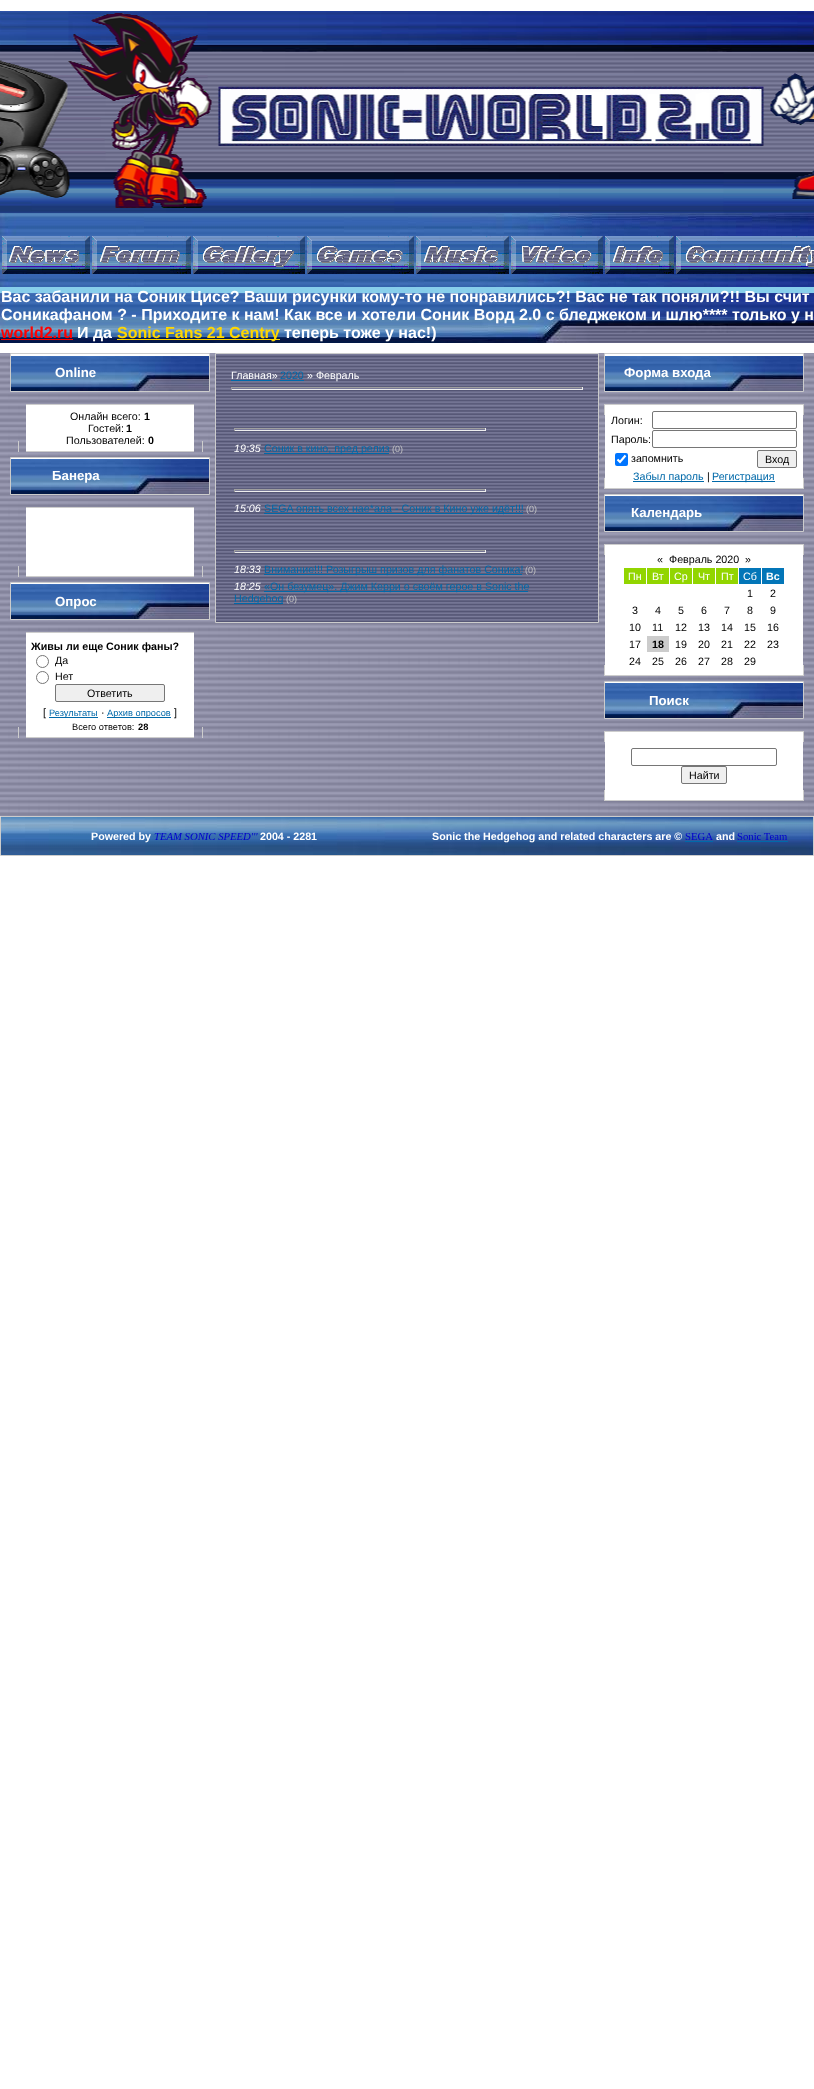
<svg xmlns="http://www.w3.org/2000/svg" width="814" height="2089">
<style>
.a{font:bold 16px Liberation Sans;fill:#fff}
.b{font:bold 16px Liberation Sans;fill:#f00}
.c{font:bold 16px Liberation Sans;fill:#ffd700}
.d{font:bold 13.25px Liberation Sans;fill:#fff}
.e{font:10.7px Liberation Sans;fill:#000}
.f{font:bold 10.7px Liberation Sans;fill:#000}
.g{font:9.25px Liberation Sans;fill:#0069a9}
.h{font:9.25px Liberation Sans;fill:#000}
.i{font:bold 9.25px Liberation Sans;fill:#000}
.j{font:10.7px Liberation Sans;fill:#fff}
.k{font:10.7px Liberation Sans;fill:#0069a9}
.l{font:italic 10.7px Liberation Sans;fill:#fff}
.m{font:9px Liberation Sans;fill:#c3c3c3}
.n{font:bold 10.7px Liberation Sans;fill:#fff}
.o{font:italic 10.7px Liberation Serif;fill:#0000cd}
.p{font:10.7px Liberation Serif;fill:#0000cd}
</style>
<rect width="100%" height="100%" fill="#fff"/>
<image href="1.png" x="0" y="11" width="814" height="202"/>
<image href="2.png" x="0" y="213" width="814" height="74"/>
<image href="3.png" x="2" y="236" width="88" height="38"/>
<image href="4.png" x="92" y="236" width="99" height="38"/>
<image href="5.png" x="193" y="236" width="112" height="38"/>
<image href="6.png" x="307" y="236" width="107" height="38"/>
<image href="7.png" x="416" y="236" width="93" height="38"/>
<image href="8.png" x="511" y="236" width="92" height="38"/>
<image href="9.png" x="605" y="236" width="69" height="38"/>
<image href="10.png" x="676" y="236" width="138" height="38"/>
<path fill="#87ceeb" d="M0 287h814v6H0z"/>
<image href="11.png" x="0" y="293" width="814" height="50"/>
<path fill="#f00" d="M1 339h72v1H1z"/>
<path fill="#ffd700" d="M117 339h163v1H117z"/>
<image href="12.png" x="0" y="353" width="814" height="463"/>
<path fill="#fff" d="M11 354h198v2H11z"/>
<image href="13.png" x="11" y="356" width="198" height="35"/>
<path fill="none" stroke="#ccc" d="M10.5 353.5h199v38H10.5z"/>
<path fill="#fff" d="M26 405h168v46H26z"/>
<path fill="#cdcdcd" d="M26 404h168v1H26z"/>
<path fill="#cdcdcd" d="M26 451h168v1H26z"/>
<path fill="#cdcdcd" d="M18 441h1v11H18z"/>
<path fill="#cdcdcd" d="M202 441h1v11H202z"/>
<path fill="#fff" d="M11 458h198v1H11z"/>
<image href="13.png" x="11" y="459" width="198" height="35"/>
<path fill="none" stroke="#ccc" d="M10.5 457.5h199v37H10.5z"/>
<path fill="#cdcdcd" d="M18 566h1v11H18z"/>
<path fill="#fff" d="M26 508h168v68H26z"/>
<path fill="#cdcdcd" d="M26 507h168v1H26z"/>
<path fill="#cdcdcd" d="M26 576h168v1H26z"/>
<path fill="#cdcdcd" d="M202 566h1v11H202z"/>
<path fill="#fff" d="M11 583h198v1H11z"/>
<image href="13.png" x="11" y="584" width="198" height="35"/>
<path fill="none" stroke="#ccc" d="M10.5 582.5h199v37H10.5z"/>
<path fill="#fff" d="M26 633h168v104H26z"/>
<path fill="#cdcdcd" d="M26 632h168v1H26z"/>
<path fill="#cdcdcd" d="M26 737h168v1H26z"/>
<circle fill="none" stroke="#767676" cx="42.5" cy="661.5" r="6"/>
<circle fill="none" stroke="#767676" cx="42.5" cy="677.5" r="6"/>
<rect fill="#efefef" stroke="#767676" x="55.5" y="684.5" width="109" height="17" rx="1.5"/>
<path fill="#0069a9" d="M49 717h49v1H49z"/>
<path fill="#0069a9" d="M107 717h64v1H107z"/>
<path fill="#cdcdcd" d="M18 727h1v11H18z"/>
<path fill="#cdcdcd" d="M202 727h1v11H202z"/>
<path fill="none" stroke="#ccc" d="M215.5 353.5h383v269H215.5z"/>
<image href="14.png" x="216" y="354" width="382" height="268"/>
<path fill="#0069a9" d="M231 380h41v1H231z"/>
<path fill="#0069a9" d="M280 380h24v1H280z"/>
<path fill="#9f9f9f" d="M231 387h352v1H231z"/>
<path fill="#eee" d="M582 387h1v3H582z"/>
<path fill="#eee" d="M231 389h352v1H231z"/>
<path fill="#9f9f9f" d="M231 387h1v3H231z"/>
<path fill="#9f9f9f" d="M234 428h252v1H234z"/>
<path fill="#eee" d="M485 428h1v3H485z"/>
<path fill="#eee" d="M234 430h252v1H234z"/>
<path fill="#9f9f9f" d="M234 428h1v3H234z"/>
<path fill="#0069a9" d="M264 453h125v1H264z"/>
<path fill="#9f9f9f" d="M234 489h252v1H234z"/>
<path fill="#eee" d="M485 489h1v3H485z"/>
<path fill="#eee" d="M234 491h252v1H234z"/>
<path fill="#9f9f9f" d="M234 489h1v3H234z"/>
<path fill="#0069a9" d="M264 513h259v1H264z"/>
<path fill="#9f9f9f" d="M234 550h252v1H234z"/>
<path fill="#eee" d="M485 550h1v3H485z"/>
<path fill="#eee" d="M234 552h252v1H234z"/>
<path fill="#9f9f9f" d="M234 550h1v3H234z"/>
<path fill="#0069a9" d="M264 574h258v1H264z"/>
<path fill="#0069a9" d="M264 591h264v1H264z"/>
<path fill="#0069a9" d="M234 603h49v1H234z"/>
<path fill="#fff" d="M605 354h198v2H605z"/>
<image href="13.png" x="605" y="356" width="198" height="35"/>
<path fill="none" stroke="#ccc" d="M604.5 353.5h199v38H604.5z"/>
<path fill="#cdcdcd" d="M604 478h1v11H604z"/>
<path fill="#cdcdcd" d="M604 404h1v11H604z"/>
<path fill="#fff" d="M605 405h198v83H605z"/>
<path fill="#cdcdcd" d="M605 404h198v1H605z"/>
<path fill="#cdcdcd" d="M605 488h198v1H605z"/>
<rect fill="none" stroke="#767676" x="652.5" y="411.5" width="144" height="17" rx="1.5"/>
<rect fill="none" stroke="#767676" x="652.5" y="430.5" width="144" height="17" rx="1.5"/>
<rect fill="#0075ff" x="615" y="453" width="13" height="13" rx="2"/>
<path fill="none" stroke="#fff" stroke-width="2.1" d="M617.5 459.5l2.5 2.5l5.5-6.5"/>
<rect fill="#efefef" stroke="#767676" x="757.5" y="450.5" width="39" height="17" rx="1.5"/>
<path fill="#0069a9" d="M633 481h71v1H633z"/>
<path fill="#0069a9" d="M712 481h63v1H712z"/>
<path fill="#cdcdcd" d="M803 478h1v11H803z"/>
<path fill="#cdcdcd" d="M803 404h1v11H803z"/>
<path fill="#fff" d="M605 495h198v1H605z"/>
<image href="13.png" x="605" y="496" width="198" height="35"/>
<path fill="none" stroke="#ccc" d="M604.5 494.5h199v37H604.5z"/>
<path fill="#cdcdcd" d="M604 665h1v11H604z"/>
<path fill="#cdcdcd" d="M604 544h1v11H604z"/>
<path fill="#fff" d="M605 545h198v130H605z"/>
<path fill="#cdcdcd" d="M605 544h198v1H605z"/>
<path fill="#cdcdcd" d="M605 675h198v1H605z"/>
<path fill="#92d500" d="M624 568h22v16H624z"/>
<path fill="#92d500" d="M647 568h22v16H647z"/>
<path fill="#92d500" d="M670 568h22v16H670z"/>
<path fill="#92d500" d="M693 568h22v16H693z"/>
<path fill="#92d500" d="M716 568h22v16H716z"/>
<path fill="#0376b8" d="M739 568h22v16H739z"/>
<path fill="#0376b8" d="M762 568h22v16H762z"/>
<path fill="#ccc" d="M647 636h22v16H647z"/>
<path fill="#cdcdcd" d="M803 665h1v11H803z"/>
<path fill="#cdcdcd" d="M803 544h1v11H803z"/>
<path fill="#fff" d="M605 682h198v1H605z"/>
<image href="13.png" x="605" y="683" width="198" height="35"/>
<path fill="none" stroke="#ccc" d="M604.5 681.5h199v37H604.5z"/>
<path fill="#cdcdcd" d="M604 790h1v11H604z"/>
<path fill="#cdcdcd" d="M604 731h1v11H604z"/>
<path fill="#fff" d="M605 732h198v68H605z"/>
<path fill="#cdcdcd" d="M605 731h198v1H605z"/>
<path fill="#cdcdcd" d="M605 800h198v1H605z"/>
<rect fill="none" stroke="#767676" x="631.5" y="748.5" width="145" height="17" rx="1.5"/>
<rect fill="#efefef" stroke="#767676" x="681.5" y="766.5" width="45" height="17" rx="1.5"/>
<path fill="#cdcdcd" d="M803 790h1v11H803z"/>
<path fill="#cdcdcd" d="M803 731h1v11H803z"/>
<image href="15.png" x="1" y="817" width="812" height="38"/>
<path fill="none" stroke="#ccc" d="M0.5 816.5h813v39H0.5z"/>
<path fill="#0069a9" d="M685 841h28v1H685z"/>
<path fill="#0069a9" d="M737 841h51v1H737z"/>
<text class="a" x="1" y="302">Вас забанили на Соник Цисе? Ваши рисунки кому-то не понравились?! Вас не так поняли?!! Вы счит</text>
<text class="a" x="1" y="320">Соникафаном ? - Приходите к нам! Как все и хотели Соник Ворд 2.0 с бледжеком и шлю**** только у н</text>
<text class="b" x="1" y="338">world2.ru</text>
<text class="a" x="77" y="338">И да</text>
<text class="c" x="117" y="338">Sonic Fans 21 Centry</text>
<text class="a" x="284" y="338">теперь тоже у нас!)</text>
<text class="d" x="55" y="377">Online</text>
<text class="e" x="70" y="420">Онлайн всего:</text>
<text class="f" x="144" y="420">1</text>
<text class="e" x="88" y="432">Гостей:</text>
<text class="f" x="126" y="432">1</text>
<text class="e" x="66" y="444">Пользователей:</text>
<text class="f" x="148" y="444">0</text>
<text class="d" x="52" y="480">Банера</text>
<text class="d" x="55" y="606">Опрос</text>
<text class="f" x="31" y="650">Живы ли еще Cоник фаны?</text>
<text class="e" x="55" y="664">Да</text>
<text class="e" x="55" y="680">Нет</text>
<text class="e" x="87" y="697">Ответить</text>
<text class="e" x="43" y="716">[</text>
<text class="g" x="49" y="716">Результаты</text>
<text class="e" x="101" y="716">·</text>
<text class="g" x="107" y="716">Архив опросов</text>
<text class="e" x="174" y="716">]</text>
<text class="h" x="72" y="730">Всего ответов:</text>
<text class="i" x="138" y="730">28</text>
<text class="j" x="231" y="379">Главная»</text>
<text class="k" x="280" y="379">2020</text>
<text class="j" x="307" y="379">» Февраль</text>
<text class="l" x="234" y="452">19:35</text>
<text class="k" x="264" y="452">Соник в кино, пред релиз</text>
<text class="m" x="392" y="452">(0)</text>
<text class="l" x="234" y="512">15:06</text>
<text class="k" x="264" y="512">SEGA опять всех нае*ала - Соник в Кино уже идёт!!!</text>
<text class="m" x="526" y="512">(0)</text>
<text class="l" x="234" y="573">18:33</text>
<text class="k" x="264" y="573">Внимание!!! Розыгрыш призов для фанатов Соника!</text>
<text class="m" x="525" y="573">(0)</text>
<text class="l" x="234" y="590">18:25</text>
<text class="k" x="264" y="590">«Он безумец». Джим Керри о своём герое в Sonic the</text>
<text class="k" x="234" y="602">Hedgehog</text>
<text class="m" x="286" y="602">(0)</text>
<text class="d" x="624" y="377">Форма входа</text>
<text class="e" x="611" y="424">Логин:</text>
<text class="e" x="611" y="443">Пароль:</text>
<text class="e" x="631" y="462">запомнить</text>
<text class="e" x="765" y="463">Вход</text>
<text class="k" x="633" y="480">Забыл пароль</text>
<text class="e" x="707" y="480">|</text>
<text class="k" x="712" y="480">Регистрация</text>
<text class="d" x="631" y="517">Календарь</text>
<text class="e" x="657" y="563">«</text>
<text class="e" x="669" y="563">Февраль 2020</text>
<text class="e" x="745" y="563">»</text>
<text class="j" x="628" y="580">Пн</text>
<text class="j" x="652" y="580">Вт</text>
<text class="j" x="674" y="580">Ср</text>
<text class="j" x="698" y="580">Чт</text>
<text class="j" x="721" y="580">Пт</text>
<text class="j" x="743" y="580">Сб</text>
<text class="n" x="766" y="580">Вс</text>
<text class="e" x="747" y="597">1</text>
<text class="e" x="770" y="597">2</text>
<text class="e" x="632" y="614">3</text>
<text class="e" x="655" y="614">4</text>
<text class="e" x="678" y="614">5</text>
<text class="e" x="701" y="614">6</text>
<text class="e" x="724" y="614">7</text>
<text class="e" x="747" y="614">8</text>
<text class="e" x="770" y="614">9</text>
<text class="e" x="629" y="631">10</text>
<text class="e" x="652" y="631">11</text>
<text class="e" x="675" y="631">12</text>
<text class="e" x="698" y="631">13</text>
<text class="e" x="721" y="631">14</text>
<text class="e" x="744" y="631">15</text>
<text class="e" x="767" y="631">16</text>
<text class="e" x="629" y="648">17</text>
<text class="f" x="652" y="648">18</text>
<text class="e" x="675" y="648">19</text>
<text class="e" x="698" y="648">20</text>
<text class="e" x="721" y="648">21</text>
<text class="e" x="744" y="648">22</text>
<text class="e" x="767" y="648">23</text>
<text class="e" x="629" y="665">24</text>
<text class="e" x="652" y="665">25</text>
<text class="e" x="675" y="665">26</text>
<text class="e" x="698" y="665">27</text>
<text class="e" x="721" y="665">28</text>
<text class="e" x="744" y="665">29</text>
<text class="d" x="649" y="705">Поиск</text>
<text class="e" x="689" y="779">Найти</text>
<text class="n" x="91" y="840">Powered by</text>
<text class="o" x="154" y="840">TEAM SONIC SPEED'''</text>
<text class="n" x="260" y="840">2004 - 2281</text>
<text class="n" x="432" y="840">Sonic the Hedgehog and related characters are ©</text>
<text class="p" x="685" y="840">SEGA</text>
<text class="n" x="716" y="840">and</text>
<text class="p" x="737" y="840">Sonic Team</text>
</svg>
